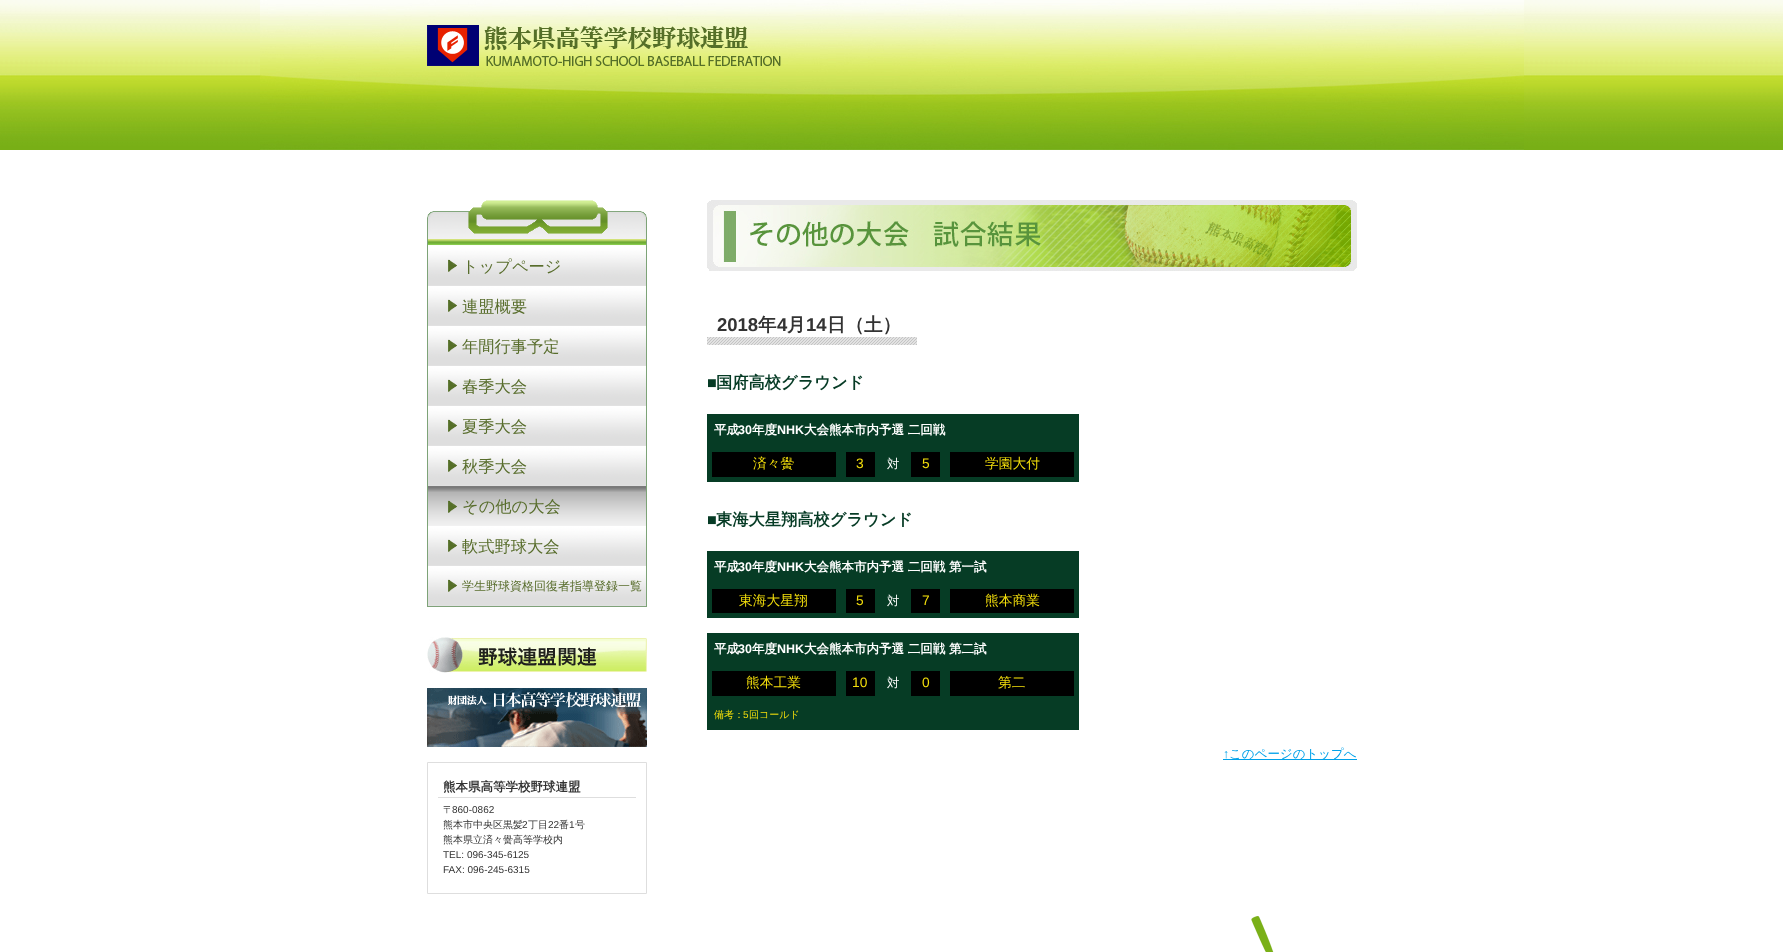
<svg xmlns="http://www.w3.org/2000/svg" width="1783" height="952">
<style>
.a{font:500 16.25px WenQuanYi Zen Hei;fill:#586d2c}
.b{font:500 12px WenQuanYi Zen Hei;fill:#586d2c}
.c{font:bold 12.5px WenQuanYi Zen Hei;fill:#333}
.d{font:500 10px WenQuanYi Zen Hei;fill:#333}
.e{font:10px Liberation Sans;fill:#333}
.f{font:bold 18.5px Liberation Sans;fill:#333}
.g{font:bold 18.5px WenQuanYi Zen Hei;fill:#333}
.h{font:bold 16.25px Liberation Sans;fill:#063b25}
.i{font:bold 16.25px WenQuanYi Zen Hei;fill:#063b25}
.j{font:bold 12.5px WenQuanYi Zen Hei;fill:#fff}
.k{font:bold 12.5px Liberation Sans;fill:#fff}
.l{font:500 13.75px WenQuanYi Zen Hei;fill:#f3de0b}
.m{font:13.75px Liberation Sans;fill:#f3de0b}
.n{font:500 12.5px WenQuanYi Zen Hei;fill:#fff}
.o{font:500 10px WenQuanYi Zen Hei;fill:#f3de0b}
.p{font:10px Liberation Sans;fill:#f3de0b}
.q{font:12.5px Liberation Sans;fill:#00a1e9}
.r{font:500 12.5px WenQuanYi Zen Hei;fill:#00a1e9}
</style>
<rect width="100%" height="100%" fill="#fff"/>
<image href="1.png" x="0" y="0" width="1783" height="150"/>
<image href="2.png" x="260" y="0" width="1264" height="150"/>
<image href="3.png" x="427" y="25" width="354" height="41"/>
<image href="4.png" x="427" y="200" width="220" height="46"/>
<path fill="#7fa279" d="M427 606h220v1H427z"/>
<image href="5.png" x="427" y="246" width="220" height="40"/>
<image href="5.png" x="427" y="286" width="220" height="40"/>
<image href="5.png" x="427" y="326" width="220" height="40"/>
<image href="5.png" x="427" y="366" width="220" height="40"/>
<image href="5.png" x="427" y="406" width="220" height="40"/>
<image href="5.png" x="427" y="446" width="220" height="40"/>
<image href="6.png" x="427" y="486" width="220" height="40"/>
<image href="5.png" x="427" y="526" width="220" height="40"/>
<image href="5.png" x="427" y="566" width="220" height="40"/>
<image href="7.png" x="427" y="637" width="220" height="36"/>
<image href="8.png" x="427" y="688" width="220" height="59"/>
<path fill="none" stroke="#dedede" d="M427.5 762.5h219v131H427.5z"/>
<path fill="#dedede" d="M438 797h198v1H438z"/>
<image href="9.png" x="707" y="200" width="650" height="71"/>
<image href="10.png" x="707" y="337" width="210" height="8"/>
<path fill="#063c25" d="M707 414h372v33H707z"/>
<path fill="#000" stroke="#063c25" stroke-width="5" d="M709.5 449.5h129v30H709.5z"/>
<path fill="#000" stroke="#063c25" stroke-width="5" d="M843.5 449.5h34v30H843.5z"/>
<path fill="#063c25" d="M880 447h26v35H880z"/>
<path fill="#000" stroke="#063c25" stroke-width="5" d="M908.5 449.5h34v30H908.5z"/>
<path fill="#000" stroke="#063c25" stroke-width="5" d="M947.5 449.5h129v30H947.5z"/>
<path fill="#063c25" d="M707 551h372v33H707z"/>
<path fill="#000" stroke="#063c25" stroke-width="5" d="M709.5 586.5h129v29H709.5z"/>
<path fill="#000" stroke="#063c25" stroke-width="5" d="M843.5 586.5h34v29H843.5z"/>
<path fill="#063c25" d="M880 584h26v34H880z"/>
<path fill="#000" stroke="#063c25" stroke-width="5" d="M908.5 586.5h34v29H908.5z"/>
<path fill="#000" stroke="#063c25" stroke-width="5" d="M947.5 586.5h129v29H947.5z"/>
<path fill="#063c25" d="M707 633h372v33H707z"/>
<path fill="#000" stroke="#063c25" stroke-width="5" d="M709.5 668.5h129v30H709.5z"/>
<path fill="#000" stroke="#063c25" stroke-width="5" d="M843.5 668.5h34v30H843.5z"/>
<path fill="#063c25" d="M880 666h26v35H880z"/>
<path fill="#000" stroke="#063c25" stroke-width="5" d="M908.5 668.5h34v30H908.5z"/>
<path fill="#000" stroke="#063c25" stroke-width="5" d="M947.5 668.5h129v30H947.5z"/>
<path fill="#063c25" d="M707 701h372v29H707z"/>
<path fill="#00a1e9" d="M1223 759h134v1H1223z"/>
<image href="11.png" x="1251" y="916" width="23" height="36"/>
<text class="a" x="462" y="272">トップページ</text>
<text class="a" x="462" y="312">連盟概要</text>
<text class="a" x="462" y="352">年間行事予定</text>
<text class="a" x="462" y="392">春季大会</text>
<text class="a" x="462" y="432">夏季大会</text>
<text class="a" x="462" y="472">秋季大会</text>
<text class="a" x="462" y="512">その他の大会</text>
<text class="a" x="462" y="552">軟式野球大会</text>
<text class="b" x="462" y="590">学生野球資格回復者指導登録一覧</text>
<text class="c" x="443" y="791">熊本県高等学校野球連盟</text>
<text class="d" x="443" y="813">〒</text>
<text class="e" x="452" y="813">860-0862</text>
<text class="d" x="443" y="828">熊本市中央区黒髪</text>
<text class="e" x="522" y="828">2</text>
<text class="d" x="528" y="828">丁目</text>
<text class="e" x="548" y="828">22</text>
<text class="d" x="559" y="828">番</text>
<text class="e" x="569" y="828">1</text>
<text class="d" x="575" y="828">号</text>
<text class="d" x="443" y="843">熊本県立済々黌高等学校内</text>
<text class="e" x="443" y="858">TEL: 096-345-6125</text>
<text class="e" x="443" y="873">FAX: 096-245-6315</text>
<text class="f" x="717" y="331">2018</text>
<text class="g" x="758" y="331">年</text>
<text class="f" x="777" y="331">4</text>
<text class="g" x="787" y="331">月</text>
<text class="f" x="806" y="331">14</text>
<text class="g" x="827" y="331">日（土）</text>
<text class="h" x="707" y="388">■</text>
<text class="i" x="716" y="388">国府高校グラウンド</text>
<text class="j" x="714" y="434">平成</text>
<text class="k" x="738" y="434">30</text>
<text class="j" x="752" y="434">年度</text>
<text class="k" x="777" y="434">NHK</text>
<text class="j" x="804" y="434">大会熊本市内予選 二回戦</text>
<text class="l" x="753" y="468">済々黌</text>
<text class="m" x="856" y="468">3</text>
<text class="n" x="887" y="468">対</text>
<text class="m" x="922" y="468">5</text>
<text class="l" x="985" y="468">学園大付</text>
<text class="h" x="707" y="525">■</text>
<text class="i" x="716" y="525">東海大星翔高校グラウンド</text>
<text class="j" x="714" y="571">平成</text>
<text class="k" x="738" y="571">30</text>
<text class="j" x="752" y="571">年度</text>
<text class="k" x="777" y="571">NHK</text>
<text class="j" x="804" y="571">大会熊本市内予選 二回戦 第一試</text>
<text class="l" x="739" y="605">東海大星翔</text>
<text class="m" x="856" y="605">5</text>
<text class="n" x="887" y="605">対</text>
<text class="m" x="922" y="605">7</text>
<text class="l" x="985" y="605">熊本商業</text>
<text class="j" x="714" y="653">平成</text>
<text class="k" x="738" y="653">30</text>
<text class="j" x="752" y="653">年度</text>
<text class="k" x="777" y="653">NHK</text>
<text class="j" x="804" y="653">大会熊本市内予選 二回戦 第二試</text>
<text class="l" x="746" y="687">熊本工業</text>
<text class="m" x="852" y="687">10</text>
<text class="n" x="887" y="687">対</text>
<text class="m" x="922" y="687">0</text>
<text class="l" x="998" y="687">第二</text>
<text class="o" x="714" y="718">備考：</text>
<text class="p" x="743" y="718">5</text>
<text class="o" x="749" y="718">回コールド</text>
<text class="q" x="1223" y="758">↑</text>
<text class="r" x="1229" y="758">このページのトップへ</text>
</svg>
